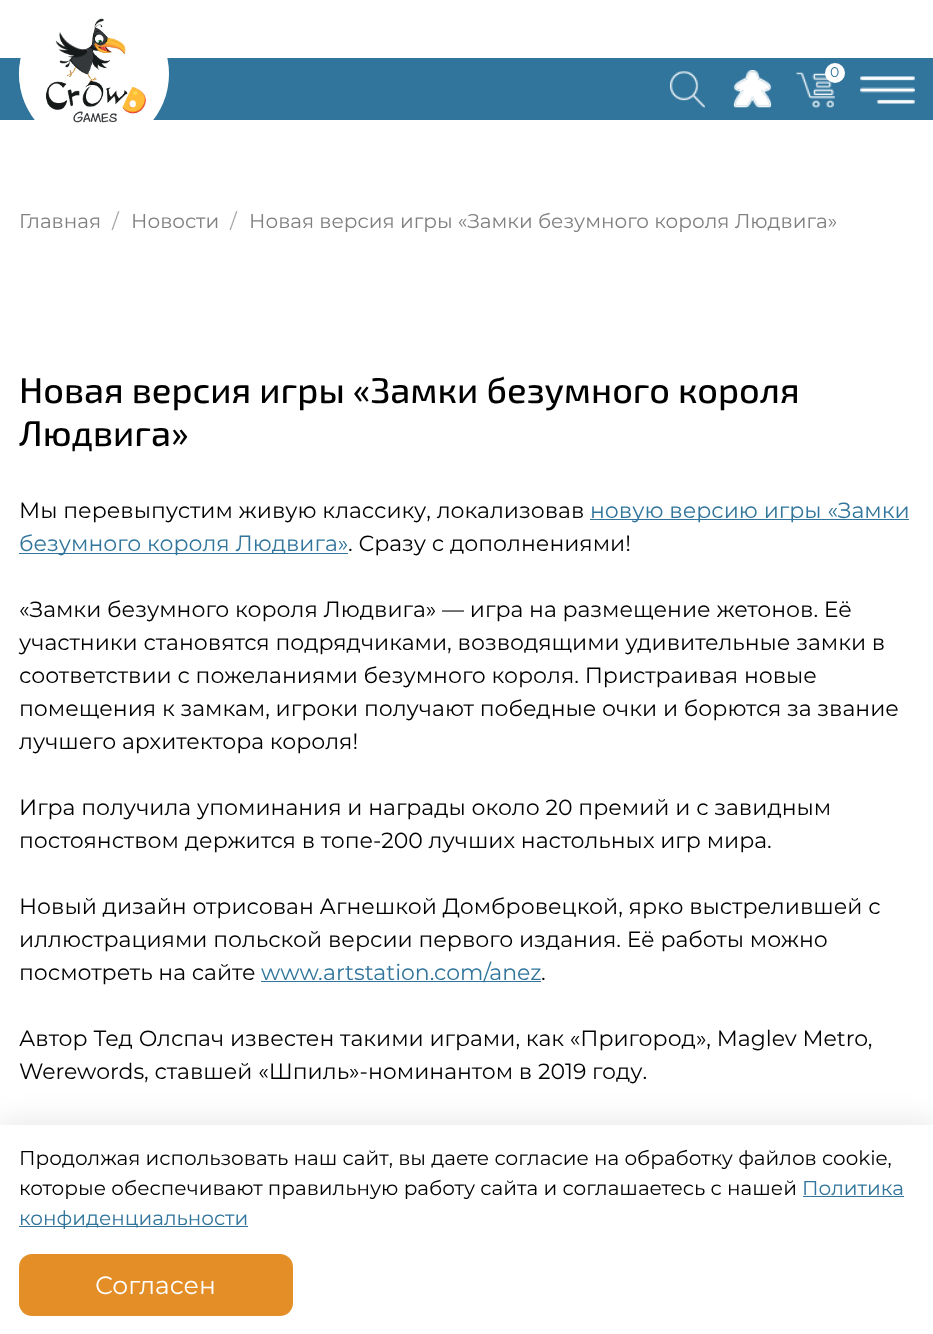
<svg xmlns="http://www.w3.org/2000/svg" width="933" height="1334">
<style>
.a{font:14px Montserrat;fill:#31759c}
.b{font:20px Montserrat;fill:#808080}
.c{font:20px Montserrat;fill:#a6a6a6}
.d{font:500 36px 'Exo 2';fill:#000}
.e{font:22px Montserrat;fill:#000}
.f{font:22px Montserrat;fill:#31759c}
.g{font:20px Montserrat;fill:#000}
.h{font:20px Montserrat;fill:#31759c}
.i{font:25px Montserrat;fill:#fff}
</style>
<rect width="100%" height="100%" fill="#fff"/>
<path fill="#31759c" d="M0 58h933v62H0z"/>
<circle fill="#fff" cx="94" cy="74" r="75"/>
<image href="1.png" x="18" y="18" width="150" height="105"/>
<image href="2.png" x="670" y="71" width="35" height="37"/>
<image href="3.png" x="733" y="70" width="39" height="38"/>
<image href="4.png" x="796" y="72" width="39" height="36"/>
<circle fill="#fff" cx="835" cy="73" r="10"/>
<image href="5.png" x="860" y="76" width="55" height="28"/>
<path fill="#31759c" d="M590 519h319v1H590z"/>
<path fill="#31759c" d="M19 553h329v1H19z"/>
<path fill="#31759c" d="M261 981h280v1H261z"/>
<path fill="#00000017" filter="blur(14.5px)" d="M-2 1121h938v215H-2z"/>
<path fill="#fff" d="M0 1125h933v209H0z"/>
<path fill="#31759c" d="M803 1196h101v1H803z"/>
<path fill="#31759c" d="M19 1226h229v1H19z"/>
<rect fill="#e48e27" x="19" y="1254" width="274" height="62" rx="13"/>
<text class="a" x="830" y="77">0</text>
<text class="b" x="19" y="228">Главная</text>
<text class="c" x="112" y="228">/</text>
<text class="b" x="131" y="228">Новости</text>
<text class="c" x="230" y="228">/</text>
<text class="b" x="249" y="228">Новая версия игры «Замки безумного короля Людвига»</text>
<text class="d" x="19" y="403">Новая версия игры «Замки безумного короля</text>
<text class="d" x="19" y="446">Людвига»</text>
<text class="e" x="19" y="518">Мы перевыпустим живую классику, локализовав</text>
<text class="f" x="590" y="518">новую версию игры «Замки</text>
<text class="f" x="19" y="551">безумного короля Людвига»</text>
<text class="e" x="348" y="551">. Сразу с дополнениями!</text>
<text class="e" x="19" y="617">«Замки безумного короля Людвига» — игра на размещение жетонов. Её</text>
<text class="e" x="19" y="650">участники становятся подрядчиками, возводящими удивительные замки в</text>
<text class="e" x="19" y="683">соответствии с пожеланиями безумного короля. Пристраивая новые</text>
<text class="e" x="19" y="716">помещения к замкам, игроки получают победные очки и борются за звание</text>
<text class="e" x="19" y="749">лучшего архитектора короля!</text>
<text class="e" x="19" y="815">Игра получила упоминания и награды около 20 премий и с завидным</text>
<text class="e" x="19" y="848">постоянством держится в топе-200 лучших настольных игр мира.</text>
<text class="e" x="19" y="914">Новый дизайн отрисован Агнешкой Домбровецкой, ярко выстрелившей с</text>
<text class="e" x="19" y="947">иллюстрациями польской версии первого издания. Её работы можно</text>
<text class="e" x="19" y="980">посмотреть на сайте</text>
<text class="f" x="261" y="980">www.artstation.com/anez</text>
<text class="e" x="541" y="980">.</text>
<text class="e" x="19" y="1046">Автор Тед Олспач известен такими играми, как «Пригород», Maglev Metro,</text>
<text class="e" x="19" y="1079">Werewords, ставшей «Шпиль»-номинантом в 2019 году.</text>
<text class="g" x="19" y="1165">Продолжая использовать наш сайт, вы даете согласие на обработку файлов cookie,</text>
<text class="g" x="19" y="1195">которые обеспечивают правильную работу сайта и соглашаетесь с нашей</text>
<text class="h" x="802" y="1195">Политика</text>
<text class="h" x="19" y="1225">конфиденциальности</text>
<text class="i" x="95" y="1294">Согласен</text>
</svg>
